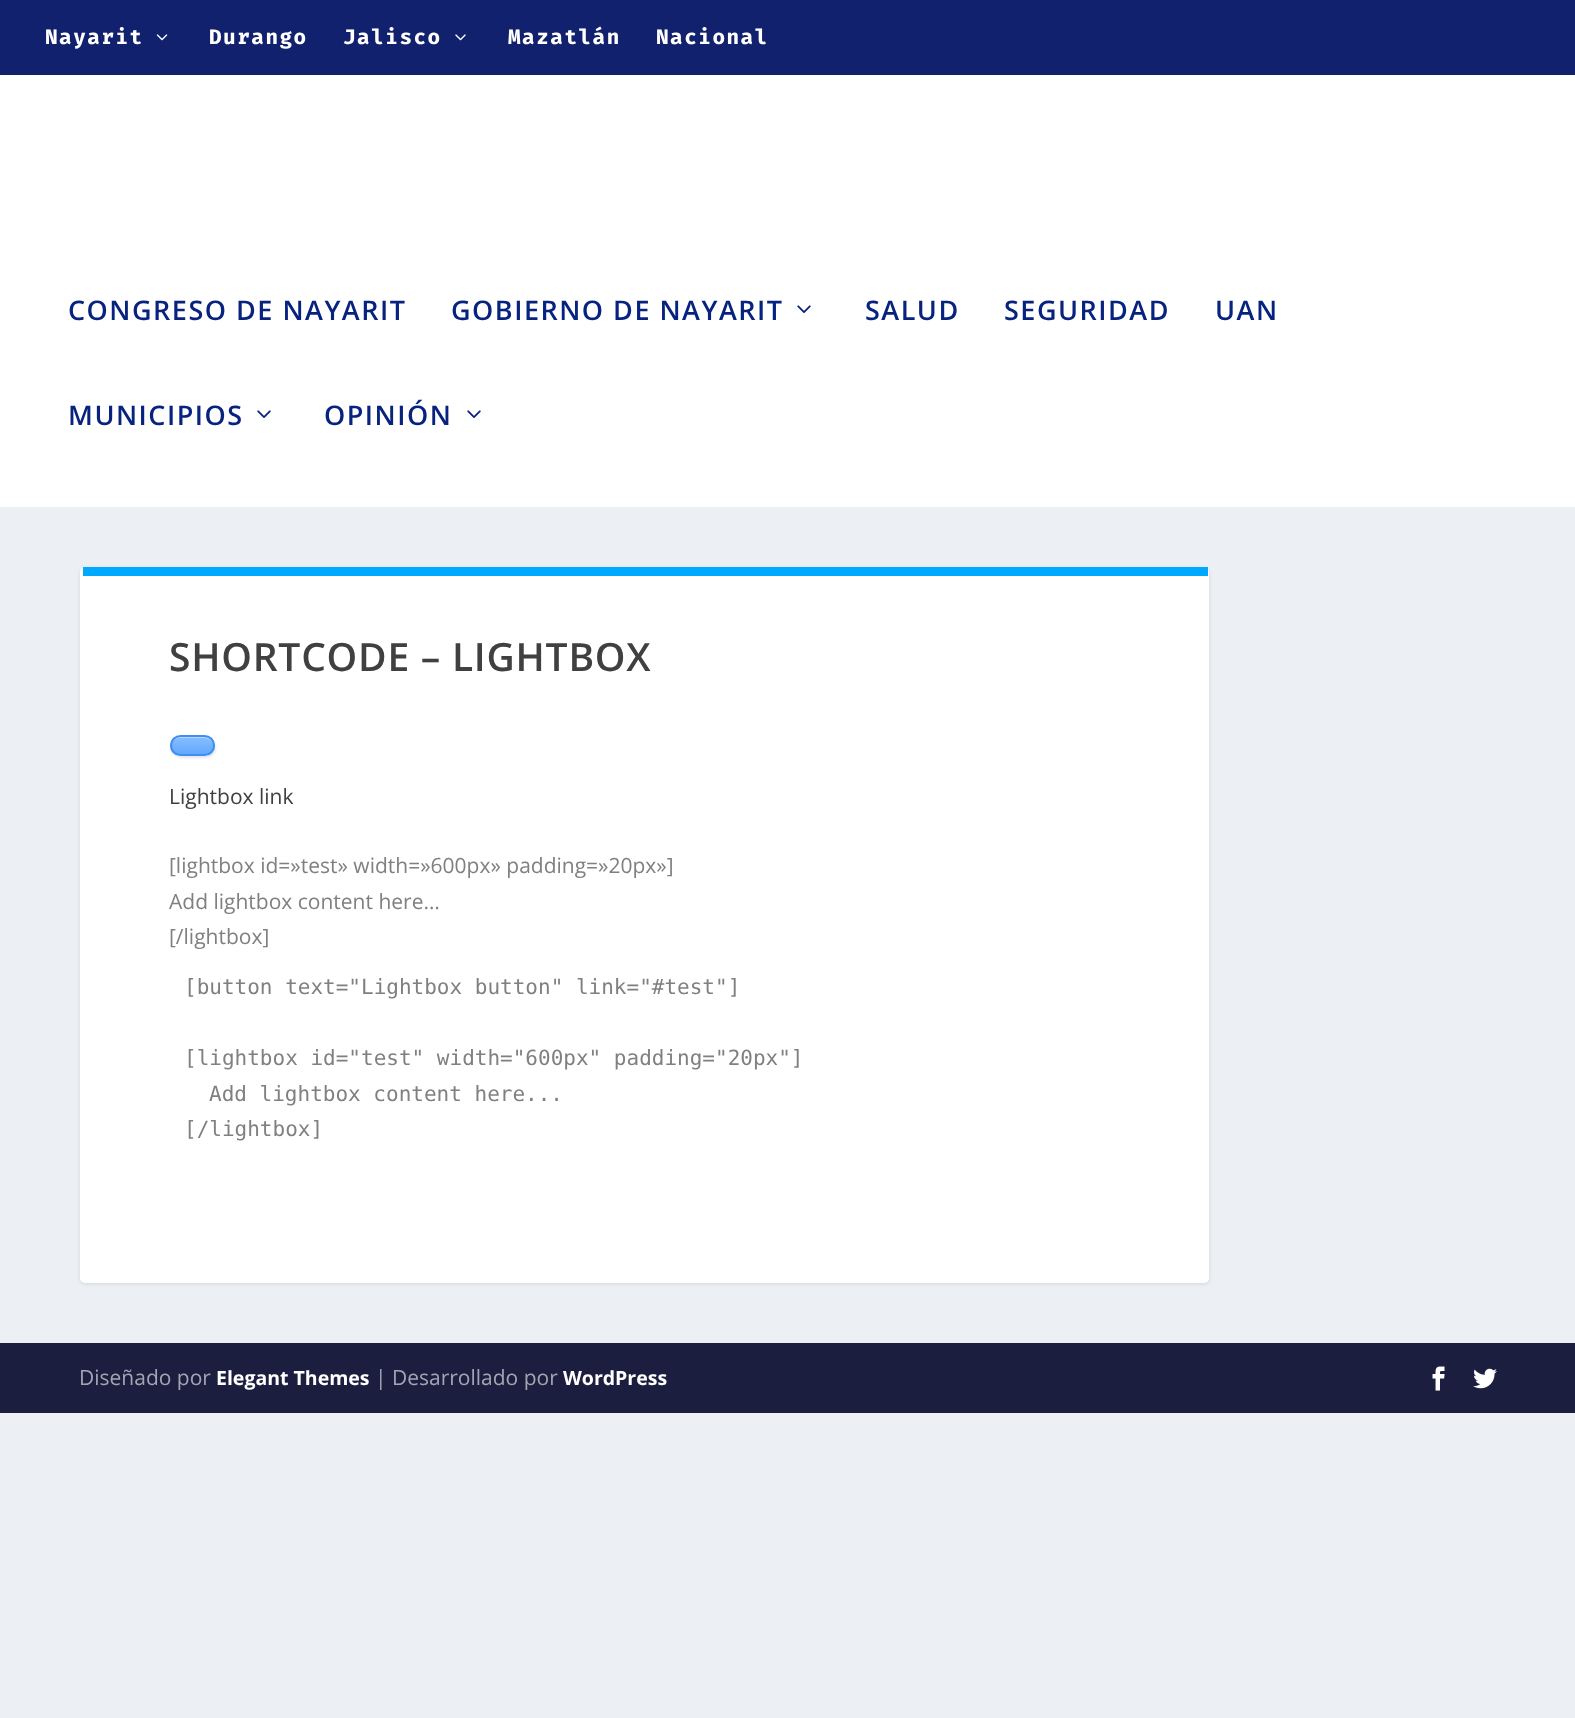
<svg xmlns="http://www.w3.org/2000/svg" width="1575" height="1718">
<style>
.a{font:bold 21px Fira Mono;letter-spacing:1.5px;fill:#fff}
.b{font:600 27px Open Sans;letter-spacing:1.5px;fill:#07237f}
.c{font:600 39px Open Sans;letter-spacing:0.75px;fill:#404040}
.d{font:21px Open Sans;fill:#404040}
.e{font:21px Open Sans;fill:#808080}
.f{font:21px DejaVu Sans Mono;fill:#808080}
.g{font:21px Open Sans;fill:#a4a5b2}
.h{font:bold 19.5px Open Sans;fill:#fff}
</style>
<defs>
<clipPath id="clip1"><rect x="170" y="735" width="45" height="21" rx="10.5"/></clipPath>
<linearGradient id="g1" gradientUnits="userSpaceOnUse" x1="192" y1="737" x2="192" y2="755"><stop offset="0" stop-color="#88bdff"/><stop offset="1" stop-color="#60a7ff"/></linearGradient>
</defs>
<rect width="100%" height="100%" fill="#ecf0f5"/>
<path fill="#12216d" d="M0 0h1575v75H0z"/>
<image href="1.png" x="156" y="34" width="12" height="7"/>
<image href="2.png" x="455" y="34" width="11" height="7"/>
<path fill="#fff" d="M0 75h1575v432H0z"/>
<image href="3.png" x="797" y="305" width="14" height="8"/>
<image href="3.png" x="257" y="410" width="14" height="8"/>
<image href="3.png" x="467" y="410" width="14" height="8"/>
<rect fill="#0000001a" filter="blur(2px)" x="80" y="569" width="1129" height="715" rx="5"/>
<rect fill="#fff" x="80" y="567" width="1129" height="716" rx="5"/>
<path fill="#00a8ff" d="M83 567h1125v9H83z"/>
<rect fill="#0000001a" filter="blur(1px)" x="171" y="737" width="45" height="21" rx="10.5"/>
<g clip-path="url(#clip1)">
<path fill="url(#g1)" d="M170 737h45v18H170z"/>
</g>
<path fill="#ffffff66" d="M180 738h24c5 0 9 4 9 8c1-11-14-9-21-9c-7 0-22-2-21 9c0-4 4-8 9-8z"/>
<rect fill="none" stroke="#3e8ff4" stroke-width="2" x="171" y="736" width="43" height="19" rx="9.5"/>
<path fill="#1b1e3e" d="M0 1343h1575v70H0z"/>
<image href="4.png" x="1432" y="1366" width="13" height="25"/>
<image href="5.png" x="1473" y="1368" width="24" height="21"/>
<text class="a" x="45" y="44">Nayarit</text>
<text class="a" x="209" y="44">Durango</text>
<text class="a" x="343" y="44">Jalisco</text>
<text class="a" x="508" y="44">Mazatlán</text>
<text class="a" x="656" y="44">Nacional</text>
<text class="b" x="68" y="320">CONGRESO DE NAYARIT</text>
<text class="b" x="451" y="320">GOBIERNO DE NAYARIT</text>
<text class="b" x="865" y="320">SALUD</text>
<text class="b" x="1004" y="320">SEGURIDAD</text>
<text class="b" x="1215" y="320">UAN</text>
<text class="b" x="68" y="425">MUNICIPIOS</text>
<text class="b" x="324" y="425">OPINIÓN</text>
<text class="c" x="169" y="671">SHORTCODE – LIGHTBOX</text>
<text class="d" x="169" y="804">Lightbox link</text>
<text class="e" x="169" y="873">[lightbox id=»test» width=»600px» padding=»20px»]</text>
<text class="e" x="169" y="909">Add lightbox content here…</text>
<text class="e" x="169" y="944">[/lightbox]</text>
<text class="f" x="184" y="994">[button text="Lightbox button" link="#test"]</text>
<text class="f" x="184" y="1065">[lightbox id="test" width="600px" padding="20px"]</text>
<text class="f" x="209" y="1101">Add lightbox content here...</text>
<text class="f" x="184" y="1136">[/lightbox]</text>
<text class="g" x="79" y="1385">Diseñado por</text>
<text class="h" x="216" y="1385">Elegant Themes</text>
<text class="g" x="375" y="1385">| Desarrollado por</text>
<text class="h" x="563" y="1385">WordPress</text>
</svg>
